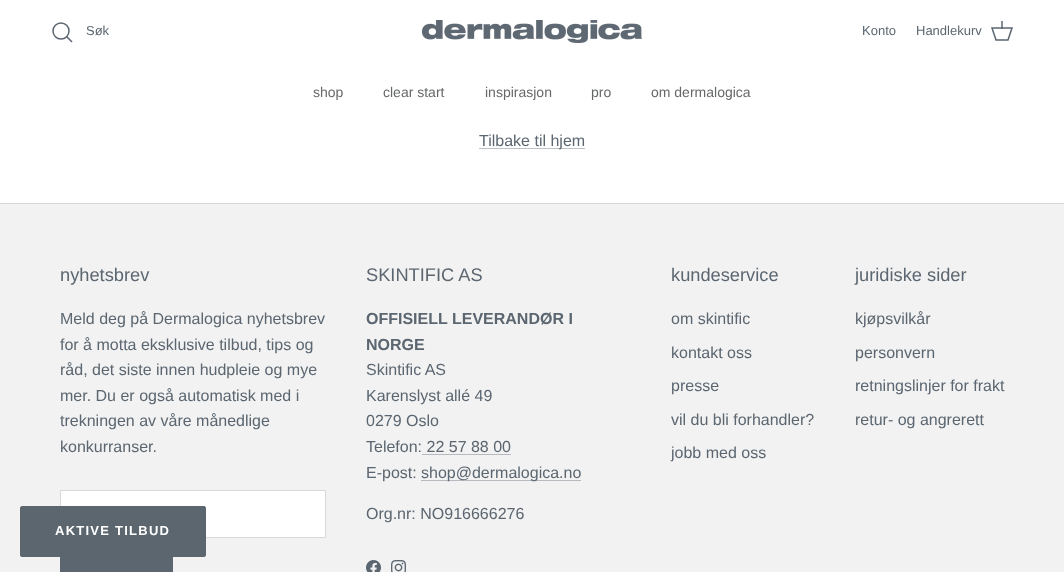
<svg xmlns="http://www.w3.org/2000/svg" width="1064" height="582">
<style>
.a{font:13px Liberation Sans;fill:#5b6670}
.b{font:14px Liberation Sans;fill:#676869}
.c{font:16px Liberation Sans;fill:#5b6670}
.d{font:18.25px Liberation Sans;fill:#5b6670}
.e{font:bold 16px Liberation Sans;fill:#5b6670}
.f{font:bold 13px Liberation Sans;letter-spacing:1.25px;fill:#fff}
</style>
<rect width="100%" height="100%" fill="#fff"/>
<circle fill="none" stroke="#5b6670" stroke-width="1.5" cx="61" cy="31" r="8"/>
<path fill="none" stroke="#5b6670" stroke-width="1.5" stroke-linecap="square" d="M67 37l4.5 4.5"/>
<image href="1.png" x="422" y="20" width="220" height="23"/>
<path fill="none" stroke="#5b6670" stroke-width="1.5" d="M992 28h20l-4 12h-12z"/>
<path fill="#5b6670bf" d="M1001 21h2v8H1001z"/>
<path fill="#bdc2c6" d="M479 148h106v1H479z"/>
<path fill="#f2f2f2" d="M0 204h1064v368H0z"/>
<path fill="#d3d5d7" d="M0 203h1064v1H0z"/>
<path fill="#fff" stroke="#d9d9da" d="M60.5 490.5h265v47H60.5z"/>
<path fill="#5b6670" d="M60 557h113v15H60z"/>
<path fill="#b6babe" d="M422 454h89v1H422z"/>
<path fill="#b6babe" d="M421 480h160v1H421z"/>
<image href="2.png" x="366" y="560" width="15" height="12"/>
<image href="3.png" x="391" y="560" width="15" height="12"/>
<rect fill="#5b666f" stroke="#5b666f" x="20.5" y="506.5" width="185" height="50" rx="1.5"/>
<text class="a" x="86" y="35">Søk</text>
<text class="a" x="862" y="35">Konto</text>
<text class="a" x="916" y="35">Handlekurv</text>
<text class="b" x="313" y="97">shop</text>
<text class="b" x="383" y="97">clear start</text>
<text class="b" x="485" y="97">inspirasjon</text>
<text class="b" x="591" y="97">pro</text>
<text class="b" x="651" y="97">om dermalogica</text>
<text class="c" x="479" y="146">Tilbake til hjem</text>
<text class="d" x="60" y="281">nyhetsbrev</text>
<text class="c" x="60" y="324">Meld deg på Dermalogica nyhetsbrev</text>
<text class="c" x="60" y="350">for å motta eksklusive tilbud, tips og</text>
<text class="c" x="60" y="375">råd, det siste innen hudpleie og mye</text>
<text class="c" x="60" y="401">mer. Du er også automatisk med i</text>
<text class="c" x="60" y="426">trekningen av våre månedlige</text>
<text class="c" x="60" y="452">konkurranser.</text>
<text class="d" x="366" y="281">SKINTIFIC AS</text>
<text class="e" x="366" y="324">OFFISIELL LEVERANDØR I</text>
<text class="e" x="366" y="350">NORGE</text>
<text class="c" x="366" y="375">Skintific AS</text>
<text class="c" x="366" y="401">Karenslyst allé 49</text>
<text class="c" x="366" y="426">0279 Oslo</text>
<text class="c" x="366" y="452">Telefon: 22 57 88 00</text>
<text class="c" x="366" y="478">E-post:</text>
<text class="c" x="421" y="478">shop@dermalogica.no</text>
<text class="c" x="366" y="519">Org.nr: NO916666276</text>
<text class="d" x="671" y="281">kundeservice</text>
<text class="c" x="671" y="324">om skintific</text>
<text class="c" x="671" y="358">kontakt oss</text>
<text class="c" x="671" y="391">presse</text>
<text class="c" x="671" y="425">vil du bli forhandler?</text>
<text class="c" x="671" y="458">jobb med oss</text>
<text class="d" x="855" y="281">juridiske sider</text>
<text class="c" x="855" y="324">kjøpsvilkår</text>
<text class="c" x="855" y="358">personvern</text>
<text class="c" x="855" y="391">retningslinjer for frakt</text>
<text class="c" x="855" y="425">retur- og angrerett</text>
<text class="f" x="55" y="535">AKTIVE TILBUD</text>
</svg>
